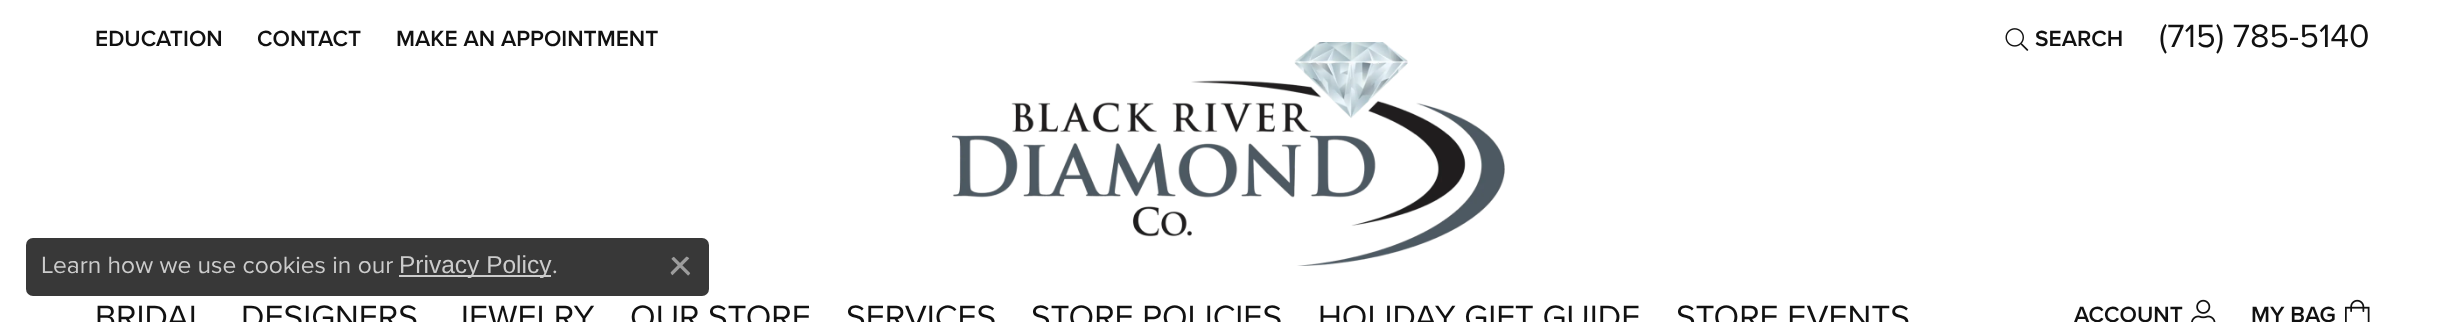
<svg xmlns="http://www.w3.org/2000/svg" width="2464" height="322">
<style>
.a{font:600 22.75px Proxima Nova;fill:#111}
.b{font:33.5px Proxima Nova;fill:#111}
.c{font:24.5px Proxima Nova;fill:#ccc}
.d{font:24.5px Liberation Sans;fill:#ccc}
</style>
<rect width="100%" height="100%" fill="#fff"/>
<image href="1.png" x="2005" y="28" width="24" height="23"/>
<rect fill="#383838" x="26" y="238" width="683" height="58" rx="7"/>
<path fill="#ccc" d="M399 275h152v2H399z"/>
<image href="2.png" x="670" y="256" width="21" height="20"/>
<image href="3.png" x="952" y="42" width="553" height="224"/>
<image href="4.png" x="2191" y="299" width="25" height="23"/>
<image href="5.png" x="2345" y="299" width="25" height="23"/>
<text class="a" x="95" y="46">EDUCATION</text>
<text class="a" x="257" y="46">CONTACT</text>
<text class="a" x="396" y="46">MAKE AN APPOINTMENT</text>
<text class="a" x="2035" y="46">SEARCH</text>
<text class="b" x="2159" y="47">(715) 785-5140</text>
<text class="c" x="41" y="273">Learn how we use cookies in our</text>
<text class="d" x="399" y="273">Privacy Policy</text>
<text class="c" x="552" y="273">.</text>
<text class="b" x="95" y="328">BRIDAL</text>
<text class="b" x="241" y="328">DESIGNERS</text>
<text class="b" x="453" y="328">JEWELRY</text>
<text class="b" x="630" y="328">OUR STORE</text>
<text class="b" x="846" y="328">SERVICES</text>
<text class="b" x="1031" y="328">STORE POLICIES</text>
<text class="b" x="1318" y="328">HOLIDAY GIFT GUIDE</text>
<text class="b" x="1676" y="328">STORE EVENTS</text>
<text class="a" x="2074" y="322">ACCOUNT</text>
<text class="a" x="2251" y="322">MY BAG</text>
</svg>
